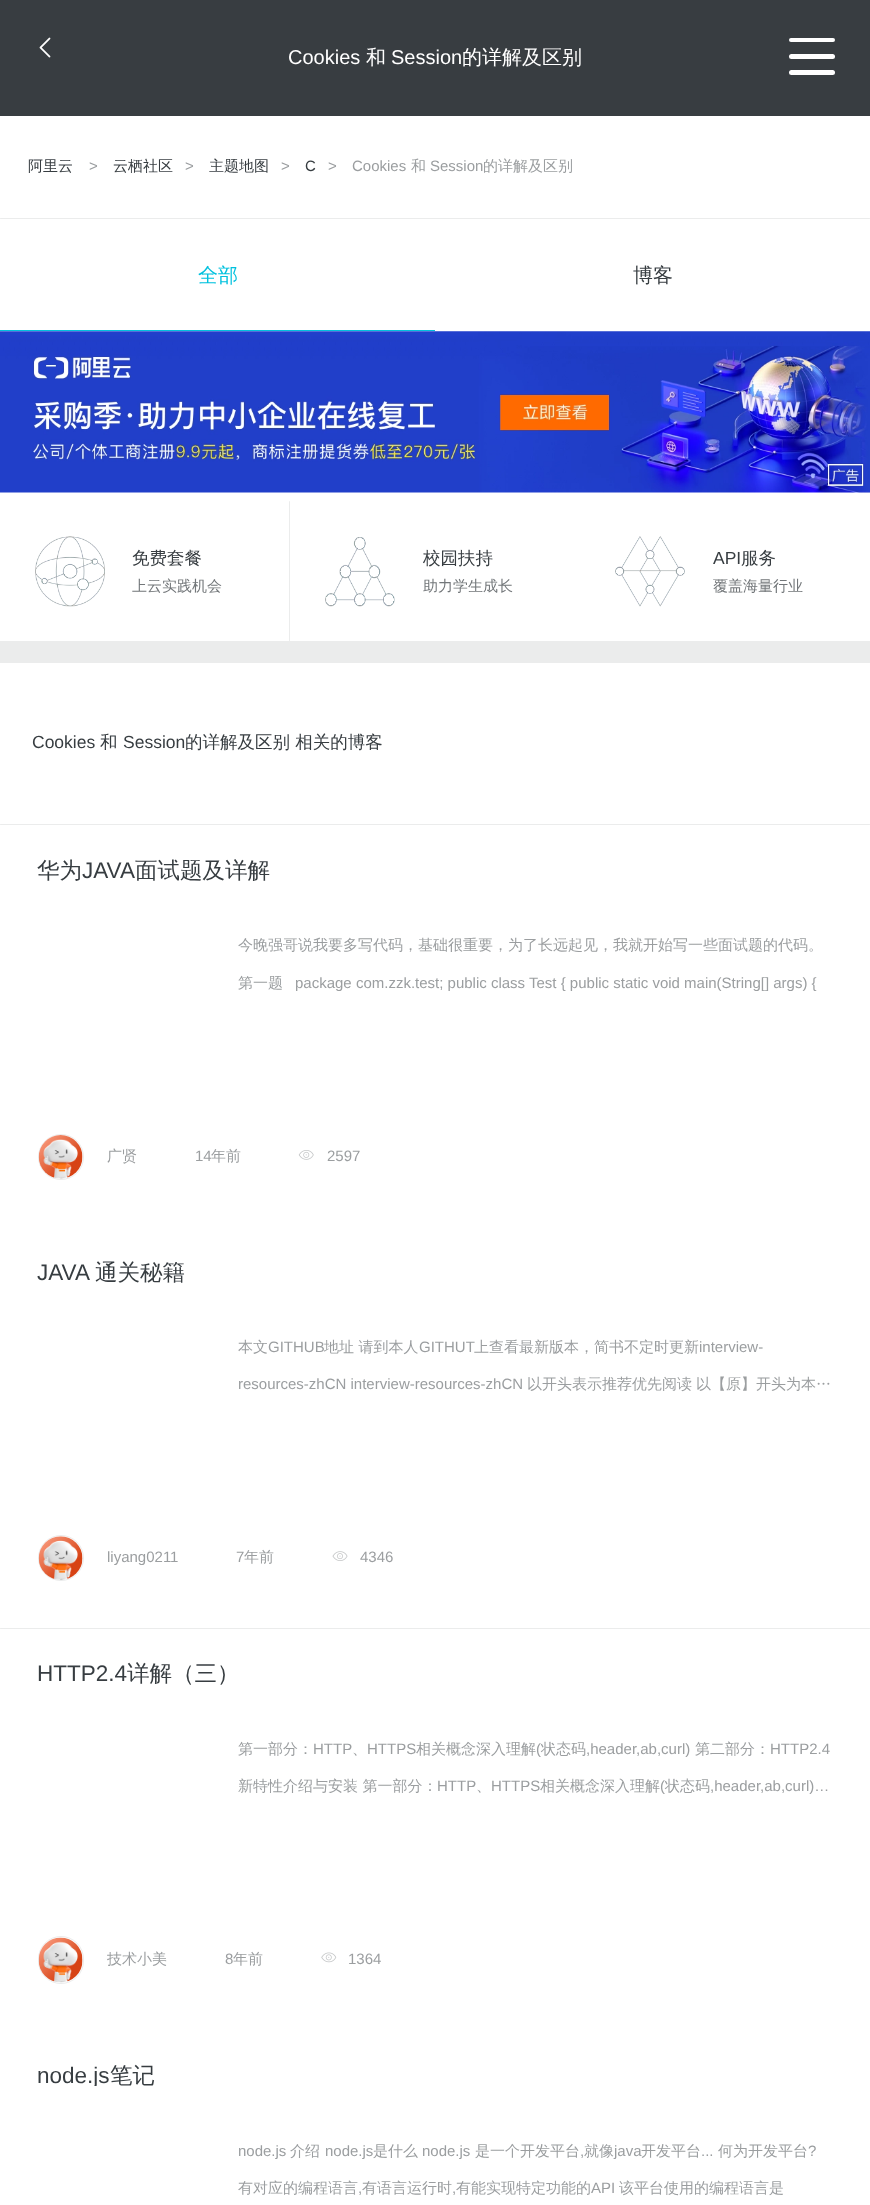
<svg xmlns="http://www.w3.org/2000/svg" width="870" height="2205">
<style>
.a{font:20px Liberation Sans;fill:#fff}
.b{font:500 20px WenQuanYi Zen Hei;fill:#fff}
.c{font:500 15px WenQuanYi Zen Hei;fill:#373d41}
.d{font:15px Liberation Sans;fill:#9b9ea0}
.e{font:15px Liberation Sans;fill:#373d41}
.f{font:500 15px WenQuanYi Zen Hei;fill:#9b9ea0}
.g{font:500 20px WenQuanYi Zen Hei;fill:#00c1de}
.h{font:500 20px WenQuanYi Zen Hei;fill:#373d41}
.i{font:500 17.5px WenQuanYi Zen Hei;fill:#373d41}
.j{font:500 15px WenQuanYi Zen Hei;fill:#73777a}
.k{font:17.5px Liberation Sans;fill:#373d41}
.l{font:500 22.5px WenQuanYi Zen Hei;fill:#373d41}
.m{font:22.5px Liberation Sans;fill:#373d41}
</style>
<defs>
<clipPath id="clip1"><path d="M38 2064h795v22H38z"/></clipPath>
</defs>
<rect width="100%" height="100%" fill="#fff"/>
<path fill="#383d41" d="M0 0h870v116H0z"/>
<image href="1.png" x="39" y="37" width="12" height="21"/>
<rect fill="#fff" x="789" y="38" width="46" height="4" rx="2"/>
<rect fill="#fff" x="789" y="54" width="46" height="5" rx="2.5"/>
<rect fill="#fff" x="789" y="70" width="46" height="5" rx="2.5"/>
<rect fill="#ebecec" y="218" width="870" height="1" rx="0.5"/>
<path fill="#00c1de" d="M0 330h435v1H0z"/>
<image href="2.png" x="0" y="331" width="870" height="162"/>
<image href="3.png" x="35" y="536" width="70" height="71"/>
<rect fill="#ebecec" x="289" y="501" width="1" height="140" rx="0.5"/>
<image href="4.png" x="325" y="537" width="70" height="70"/>
<image href="5.png" x="615" y="536" width="70" height="71"/>
<path fill="#ebecec" d="M0 641h870v22H0z"/>
<rect fill="#ebecec" y="824" width="870" height="1" rx="0.5"/>
<circle fill="none" stroke="#ebecec" cx="61" cy="1157" r="22.5"/>
<image href="6.png" x="38" y="1135" width="45" height="44"/>
<image href="7.png" x="298" y="1150" width="16" height="10"/>
<circle fill="none" stroke="#ebecec" cx="61" cy="1558" r="22.5"/>
<image href="8.png" x="38" y="1536" width="45" height="44"/>
<image href="9.png" x="332" y="1551" width="16" height="10"/>
<rect fill="#ebecec" y="1628" width="870" height="1" rx="0.5"/>
<rect fill="none" stroke="#ebecec" x="38.5" y="1936.5" width="45" height="47" rx="22.5"/>
<image href="10.png" x="38" y="1937" width="45" height="46"/>
<image href="11.png" x="321" y="1952" width="16" height="11"/>
<text class="a" x="288" y="64">Cookies</text>
<text class="b" x="366" y="64">和</text>
<text class="a" x="391" y="64">Session</text>
<text class="b" x="462" y="64">的详解及区别</text>
<text class="c" x="28" y="171">阿里云</text>
<text class="d" x="89" y="171">&gt;</text>
<text class="c" x="113" y="171">云栖社区</text>
<text class="d" x="185" y="171">&gt;</text>
<text class="c" x="209" y="171">主题地图</text>
<text class="d" x="281" y="171">&gt;</text>
<text class="e" x="305" y="171">C</text>
<text class="d" x="328" y="171">&gt;</text>
<text class="d" x="352" y="171">Cookies</text>
<text class="f" x="411" y="171">和</text>
<text class="d" x="430" y="171">Session</text>
<text class="f" x="483" y="171">的详解及区别</text>
<text class="g" x="198" y="282">全部</text>
<text class="h" x="633" y="282">博客</text>
<text class="i" x="132" y="564">免费套餐</text>
<text class="j" x="132" y="591">上云实践机会</text>
<text class="i" x="423" y="564">校园扶持</text>
<text class="j" x="423" y="591">助力学生成长</text>
<text class="k" x="713" y="564">API</text>
<text class="i" x="741" y="564">服务</text>
<text class="j" x="713" y="591">覆盖海量行业</text>
<text class="k" x="32" y="748">Cookies</text>
<text class="i" x="100" y="748">和</text>
<text class="k" x="123" y="748">Session</text>
<text class="i" x="185" y="748">的详解及区别 相关的博客</text>
<text class="l" x="37" y="878">华为</text>
<text class="m" x="82" y="878">JAVA</text>
<text class="l" x="135" y="878">面试题及详解</text>
<text class="f" x="238" y="950">今晚强哥说我要多写代码，基础很重要，为了长远起见，我就开始写一些面试题的代码。</text>
<text class="f" x="238" y="988">第一题</text>
<text class="d" x="295" y="988">package com.zzk.test; public class Test { public static void main(String[] args) {</text>
<text class="f" x="107" y="1161">广贤</text>
<text class="d" x="195" y="1161">14</text>
<text class="f" x="211" y="1161">年前</text>
<text class="d" x="327" y="1161">2597</text>
<text class="m" x="37" y="1280">JAVA</text>
<text class="l" x="95" y="1280">通关秘籍</text>
<text class="f" x="238" y="1352">本文</text>
<text class="d" x="268" y="1352">GITHUB</text>
<text class="f" x="324" y="1352">地址 请到本人</text>
<text class="d" x="419" y="1352">GITHUT</text>
<text class="f" x="474" y="1352">上查看最新版本，简书不定时更新</text>
<text class="d" x="699" y="1352">interview-</text>
<text class="d" x="238" y="1389">resources-zhCN interview-resources-zhCN</text>
<text class="f" x="527" y="1389">以开头表示推荐优先阅读</text>
<text class="f" x="696" y="1389">以【原】开头为本…</text>
<text class="d" x="107" y="1562">liyang0211</text>
<text class="d" x="236" y="1562">7</text>
<text class="f" x="244" y="1562">年前</text>
<text class="d" x="360" y="1562">4346</text>
<text class="m" x="37" y="1681">HTTP2.4</text>
<text class="l" x="127" y="1681">详解（三）</text>
<text class="f" x="238" y="1754">第一部分：</text>
<text class="d" x="313" y="1754">HTTP</text>
<text class="f" x="352" y="1754">、</text>
<text class="d" x="367" y="1754">HTTPS</text>
<text class="f" x="416" y="1754">相关概念深入理解</text>
<text class="d" x="536" y="1754">(</text>
<text class="f" x="541" y="1754">状态码</text>
<text class="d" x="586" y="1754">,header,ab,curl)</text>
<text class="f" x="695" y="1754">第二部分：</text>
<text class="d" x="770" y="1754">HTTP2.4</text>
<text class="f" x="238" y="1791">新特性介绍与安装 第一部分：</text>
<text class="d" x="437" y="1791">HTTP</text>
<text class="f" x="476" y="1791">、</text>
<text class="d" x="491" y="1791">HTTPS</text>
<text class="f" x="540" y="1791">相关概念深入理解</text>
<text class="d" x="660" y="1791">(</text>
<text class="f" x="665" y="1791">状态码</text>
<text class="d" x="710" y="1791">,header,ab,curl)…</text>
<text class="f" x="107" y="1964">技术小美</text>
<text class="d" x="225" y="1964">8</text>
<text class="f" x="233" y="1964">年前</text>
<text class="d" x="348" y="1964">1364</text>
<g clip-path="url(#clip1)">
<text class="m" x="37" y="2083">node.js</text>
</g>
<text class="l" x="110" y="2083">笔记</text>
<text class="d" x="238" y="2156">node.js</text>
<text class="f" x="290" y="2156">介绍</text>
<text class="d" x="325" y="2156">node.js</text>
<text class="f" x="373" y="2156">是什么</text>
<text class="d" x="422" y="2156">node.js</text>
<text class="f" x="475" y="2156">是一个开发平台</text>
<text class="d" x="580" y="2156">,</text>
<text class="f" x="584" y="2156">就像</text>
<text class="d" x="614" y="2156">java</text>
<text class="f" x="641" y="2156">开发平台</text>
<text class="d" x="701" y="2156">...</text>
<text class="f" x="718" y="2156">何为开发平台</text>
<text class="d" x="808" y="2156">?</text>
<text class="f" x="238" y="2193">有对应的编程语言</text>
<text class="d" x="358" y="2193">,</text>
<text class="f" x="362" y="2193">有语言运行时</text>
<text class="d" x="452" y="2193">,</text>
<text class="f" x="456" y="2193">有能实现特定功能的</text>
<text class="d" x="591" y="2193">API</text>
<text class="f" x="619" y="2193">该平台使用的编程语言是</text>
</svg>
